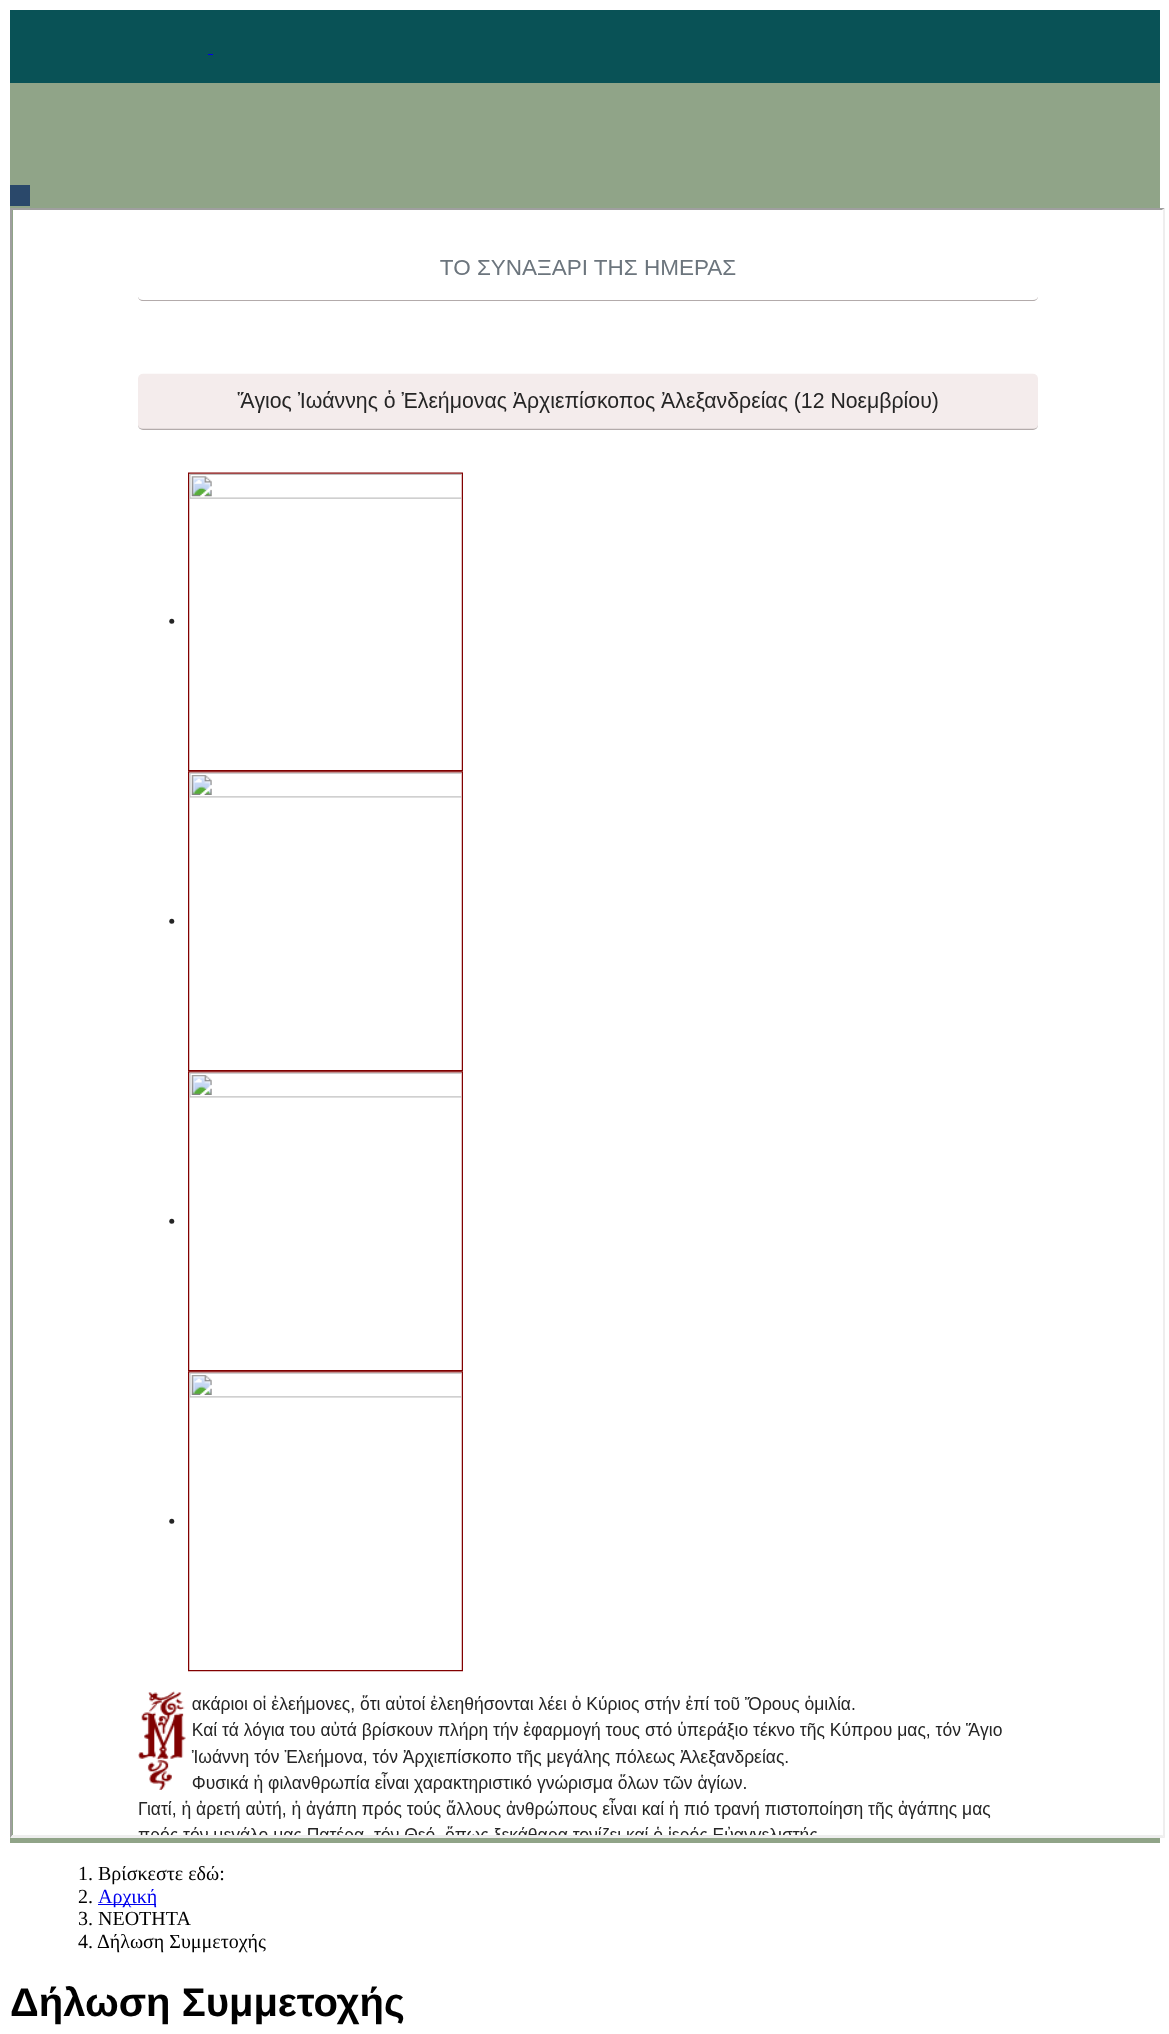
<svg xmlns="http://www.w3.org/2000/svg" width="1169" height="2034">
<style>
.a{font:20px Liberation Serif;fill:#000}
.b{font:20px Liberation Serif;fill:#00e}
.c{font:bold 40px Liberation Sans;fill:#000}
</style>
<rect width="100%" height="100%" fill="#fff"/>
<path fill="#095256" d="M10 10h1150v73H10z"/>
<path fill="#00e" d="M208 54h5v1H208z"/>
<path fill="#90a488" d="M10 83h1150v1760H10z"/>
<path fill="#2a486a" d="M10 185h20v21H10z"/>
<path fill="#9f9f9f" d="M10 208h1155l-3 2h-1150z"/>
<path fill="#eee" d="M1165 208v1630l-3-3v-1625z"/>
<path fill="#eee" d="M1165 1838h-1155l2-3h1150z"/>
<path fill="#9f9f9f" d="M10 1838v-1630l2 2v1625z"/>
<image href="1.png" x="13" y="210" width="1150" height="1625"/>
<path fill="#00e" d="M98 1904h58v1H98z"/>
<text class="a" x="78" y="1880">1. Βρίσκεστε εδώ:</text>
<text class="a" x="78" y="1903">2.</text>
<text class="b" x="98" y="1903">Αρχική</text>
<text class="a" x="78" y="1925">3. ΝΕΟΤΗΤΑ</text>
<text class="a" x="78" y="1948">4. Δήλωση Συμμετοχής</text>
<text class="c" x="10" y="2016">Δήλωση Συμμετοχής</text>
</svg>
